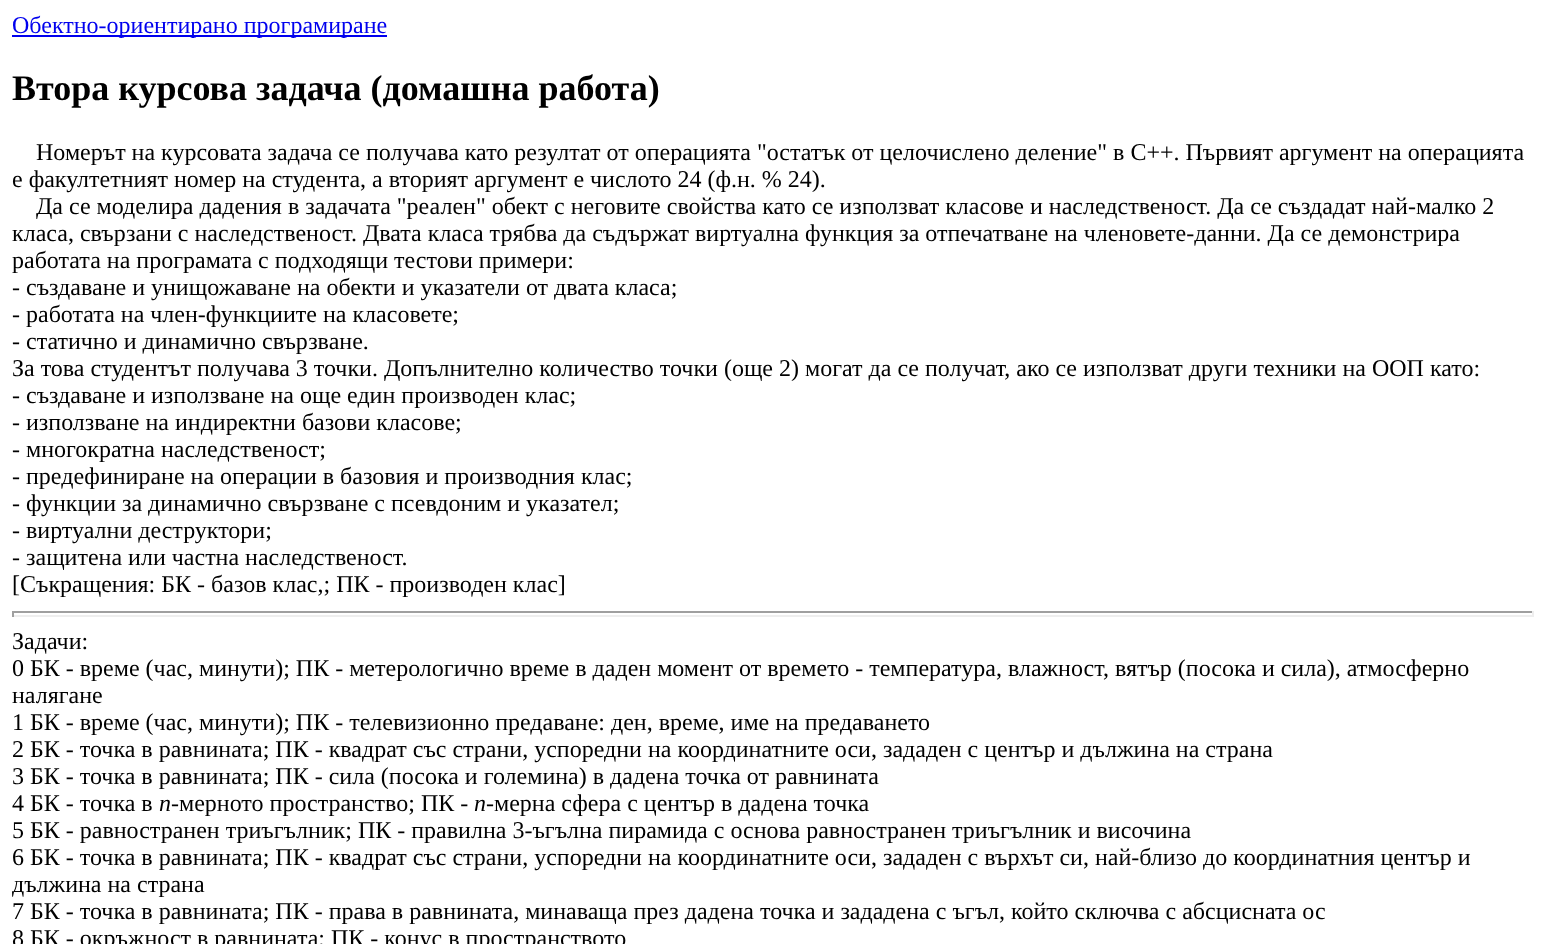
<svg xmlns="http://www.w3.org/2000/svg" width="1541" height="944">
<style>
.a{font:24px Liberation Serif;fill:#00e}
.b{font:bold 36px Liberation Serif;fill:#000}
.c{font:24px Liberation Serif;fill:#000}
.d{font:italic 24px Liberation Serif;fill:#000}
</style>
<rect width="100%" height="100%" fill="#fff"/>
<path fill="#00e" d="M12 35h375v2H12z"/>
<path fill="#9f9f9f" d="M12 611h1521v2H12z"/>
<path fill="#eee" d="M1532 611h2v6H1532z"/>
<path fill="#eee" d="M12 615h1521v2H12z"/>
<path fill="#9f9f9f" d="M12 611h2v6H12z"/>
<text class="a" x="12" y="33">Обектно-ориентирано програмиране</text>
<text class="b" x="12" y="100">Втора курсова задача (домашна работа)</text>
<text class="c" x="36" y="160">Номерът на курсовата задача се получава като резултат от операцията "остатък от целочислено деление" в С++. Първият аргумент на операцията</text>
<text class="c" x="12" y="187">е факултетният номер на студента, а вторият аргумент е числото 24 (ф.н. % 24).</text>
<text class="c" x="36" y="214">Да се моделира дадения в задачата "реален" обект с неговите свойства като се използват класове и наследственост. Да се създадат най-малко 2</text>
<text class="c" x="12" y="241">класа, свързани с наследственост. Двата класа трябва да съдържат виртуална функция за отпечатване на членовете-данни. Да се демонстрира</text>
<text class="c" x="12" y="268">работата на програмата с подходящи тестови примери:</text>
<text class="c" x="12" y="295">- създаване и унищожаване на обекти и указатели от двата класа;</text>
<text class="c" x="12" y="322">- работата на член-функциите на класовете;</text>
<text class="c" x="12" y="349">- статично и динамично свързване.</text>
<text class="c" x="12" y="376">За това студентът получава 3 точки. Допълнително количество точки (още 2) могат да се получат, ако се използват други техники на ООП като:</text>
<text class="c" x="12" y="403">- създаване и използване на още един производен клас;</text>
<text class="c" x="12" y="430">- използване на индиректни базови класове;</text>
<text class="c" x="12" y="457">- многократна наследственост;</text>
<text class="c" x="12" y="484">- предефиниране на операции в базовия и производния клас;</text>
<text class="c" x="12" y="511">- функции за динамично свързване с псевдоним и указател;</text>
<text class="c" x="12" y="538">- виртуални деструктори;</text>
<text class="c" x="12" y="565">- защитена или частна наследственост.</text>
<text class="c" x="12" y="592">[Съкращения: БК - базов клас,; ПК - производен клас]</text>
<text class="c" x="12" y="649">Задачи:</text>
<text class="c" x="12" y="676">0 БК - време (час, минути); ПК - метерологично време в даден момент от времето - температура, влажност, вятър (посока и сила), атмосферно</text>
<text class="c" x="12" y="703">налягане</text>
<text class="c" x="12" y="730">1 БК - време (час, минути); ПК - телевизионно предаване: ден, време, име на предаването</text>
<text class="c" x="12" y="757">2 БК - точка в равнината; ПК - квадрат със страни, успоредни на координатните оси, зададен с център и дължина на страна</text>
<text class="c" x="12" y="784">3 БК - точка в равнината; ПК - сила (посока и големина) в дадена точка от равнината</text>
<text class="c" x="12" y="811">4 БК - точка в</text>
<text class="d" x="159" y="811">n</text>
<text class="c" x="171" y="811">-мерното пространство; ПК -</text>
<text class="d" x="474" y="811">n</text>
<text class="c" x="486" y="811">-мерна сфера с център в дадена точка</text>
<text class="c" x="12" y="838">5 БК - равностранен триъгълник; ПК - правилна 3-ъгълна пирамида с основа равностранен триъгълник и височина</text>
<text class="c" x="12" y="865">6 БК - точка в равнината; ПК - квадрат със страни, успоредни на координатните оси, зададен с върхът си, най-близо до координатния център и</text>
<text class="c" x="12" y="892">дължина на страна</text>
<text class="c" x="12" y="919">7 БК - точка в равнината; ПК - права в равнината, минаваща през дадена точка и зададена с ъгъл, който сключва с абсцисната ос</text>
<text class="c" x="12" y="946">8 БК - окръжност в равнината; ПК - конус в пространството</text>
</svg>
